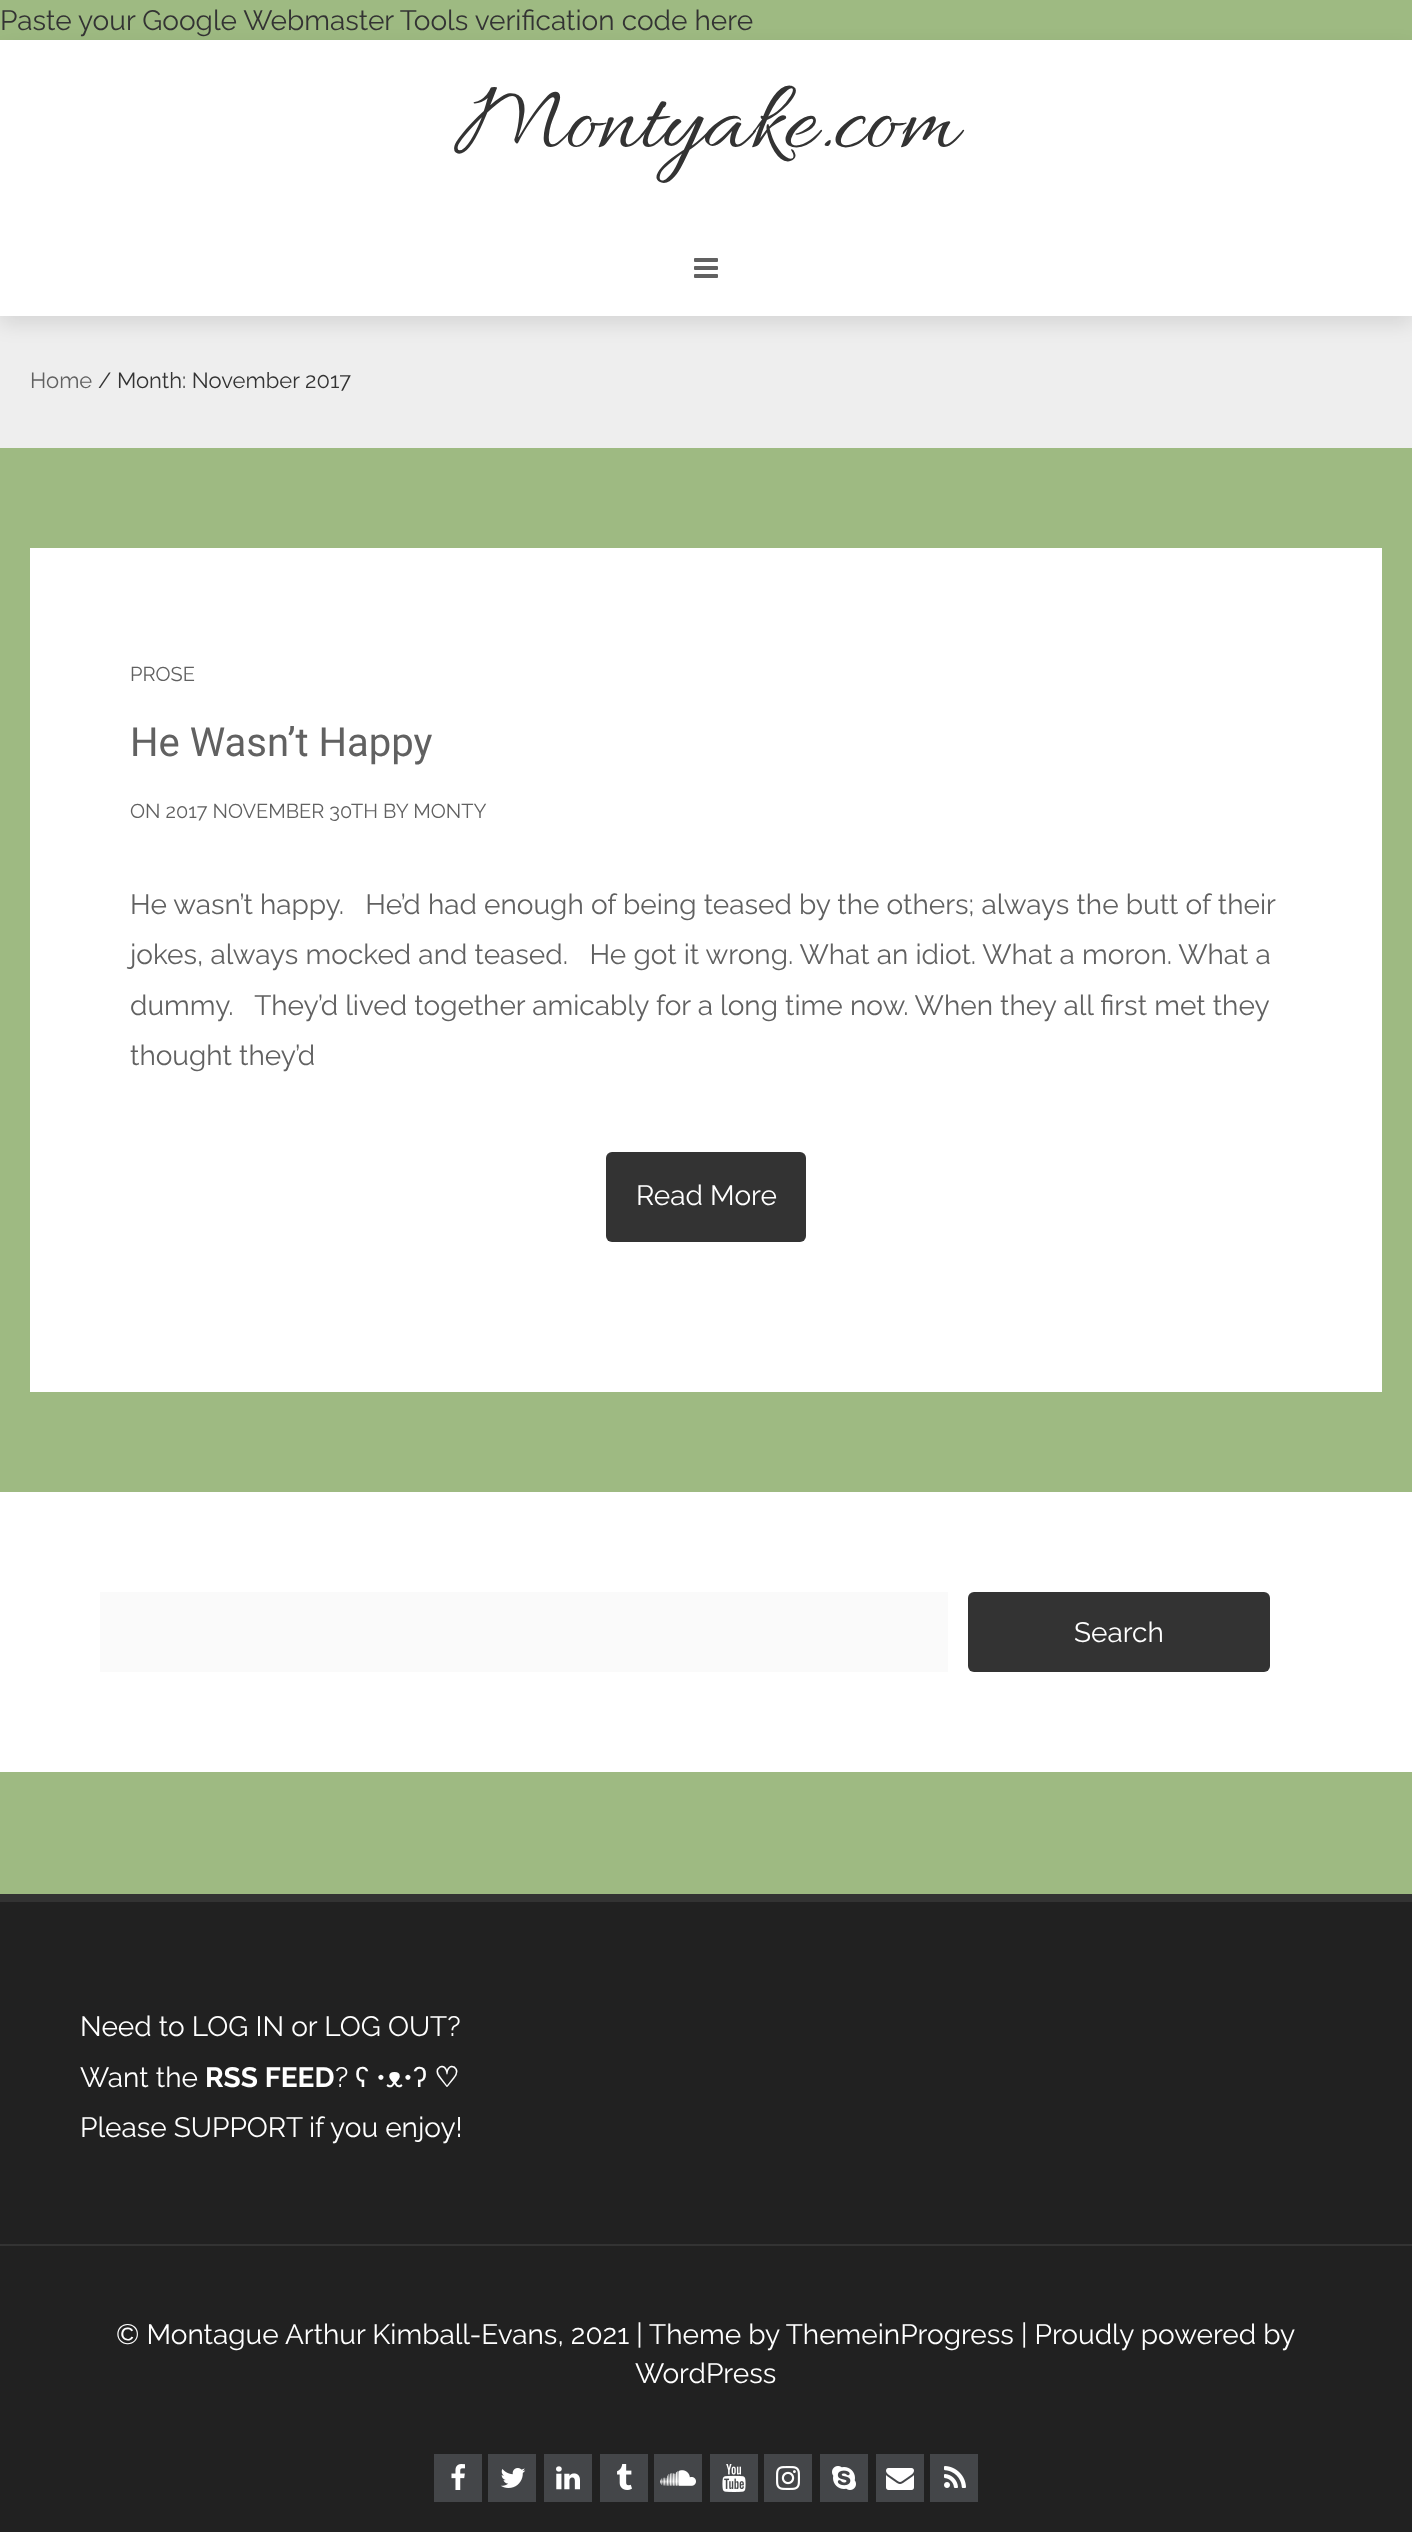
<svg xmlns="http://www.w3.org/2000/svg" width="1412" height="2532">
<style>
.a{font:28px Raleway;fill:#333}
.b{font:100px Allura;fill:#333}
.c{font:22px Raleway;fill:#616161}
.d{font:22px Raleway;fill:#333}
.e{font:20px Raleway;fill:#616161}
.f{font:40px Roboto;fill:#616161}
.g{font:28px Raleway;fill:#616161}
.h{font:28px Raleway;fill:#fff}
.i{font:bold 28px Raleway;fill:#fff}
.j{font:28px Liberation Sans;fill:#fff}
.k{font:bold 28px DejaVu Sans;fill:#fff}
</style>
<rect width="100%" height="100%" fill="#9eba82"/>
<path fill="#eee" d="M0 316h1412v132H0z"/>
<path fill="#0000001a" filter="blur(10px)" d="M0 48h1412v276H0z"/>
<path fill="#fff" d="M0 40h1412v276H0z"/>
<image href="1.png" x="694" y="258" width="24" height="20"/>
<path fill="#fff" d="M30 548h1352v844H30z"/>
<rect fill="#333" x="606" y="1152" width="200" height="90" rx="6"/>
<path fill="#fff" d="M0 1492h1412v280H0z"/>
<path fill="#fafafa" d="M100 1592h848v80H100z"/>
<rect fill="#333" x="968" y="1592" width="302" height="80" rx="6"/>
<path fill="#212121" d="M0 1902h1412v630H0z"/>
<path fill="#333" d="M0 1894h1412v8H0z"/>
<path fill="#333" d="M0 2244h1412v2H0z"/>
<path fill="#444649" d="M434 2454h48v48H434z"/>
<image href="2.png" x="451" y="2464" width="14" height="26"/>
<path fill="#444649" d="M488 2454h48v48H488z"/>
<image href="3.png" x="500" y="2468" width="26" height="20"/>
<path fill="#444649" d="M544 2454h48v48H544z"/>
<image href="4.png" x="556" y="2466" width="24" height="24"/>
<path fill="#444649" d="M600 2454h48v48H600z"/>
<image href="5.png" x="617" y="2464" width="15" height="26"/>
<path fill="#444649" d="M654 2454h48v48H654z"/>
<image href="6.png" x="660" y="2470" width="36" height="16"/>
<path fill="#444649" d="M710 2454h48v48H710z"/>
<image href="7.png" x="722" y="2464" width="24" height="28"/>
<path fill="#444649" d="M764 2454h48v48H764z"/>
<image href="8.png" x="776" y="2466" width="24" height="24"/>
<path fill="#444649" d="M820 2454h48v48H820z"/>
<image href="9.png" x="832" y="2466" width="24" height="24"/>
<path fill="#444649" d="M876 2454h48v48H876z"/>
<image href="10.png" x="886" y="2468" width="28" height="22"/>
<path fill="#444649" d="M930 2454h48v48H930z"/>
<image href="11.png" x="944" y="2466" width="22" height="22"/>
<text class="a" x="0" y="30">Paste your Google Webmaster Tools verification code here</text>
<text class="b" x="455" y="146">Montyake.com</text>
<text class="c" x="30" y="388">Home</text>
<text class="d" x="98" y="388">/ Month: November 2017</text>
<text class="e" x="130" y="681">PROSE</text>
<text class="f" x="130" y="756">He Wasn’t Happy</text>
<text class="e" x="130" y="818">ON 2017 NOVEMBER 30TH BY MONTY</text>
<text class="g" xml:space="preserve" x="130" y="914">He wasn’t happy.   He’d had enough of being teased by the others; always the butt of their</text>
<text class="g" xml:space="preserve" x="130" y="964">jokes, always mocked and teased.   He got it wrong. What an idiot. What a moron. What a</text>
<text class="g" xml:space="preserve" x="130" y="1015">dummy.   They’d lived together amicably for a long time now. When they all first met they</text>
<text class="g" x="130" y="1065">thought they’d</text>
<text class="h" x="636" y="1205">Read More</text>
<text class="h" x="1074" y="1642">Search</text>
<text class="h" x="80" y="2036">Need to LOG IN or LOG OUT?</text>
<text class="h" x="80" y="2087">Want the</text>
<text class="i" x="205" y="2087">RSS FEED</text>
<text class="h" x="335" y="2087">?</text>
<text class="j" x="355" y="2087">ʕ</text>
<text class="h" x="376" y="2087">•</text>
<text class="j" x="386" y="2087">ᴥ</text>
<text class="h" x="403" y="2087">•</text>
<text class="j" x="413" y="2087">ʔ</text>
<text class="k" x="434" y="2087">♡</text>
<text class="h" x="80" y="2137">Please SUPPORT</text>
<text class="h" x="309" y="2137">if you enjoy!</text>
<text class="h" x="116" y="2344">© Montague Arthur Kimball-Evans, 2021 | Theme by ThemeinProgress | Proudly powered by</text>
<text class="h" x="635" y="2383">WordPress</text>
</svg>
